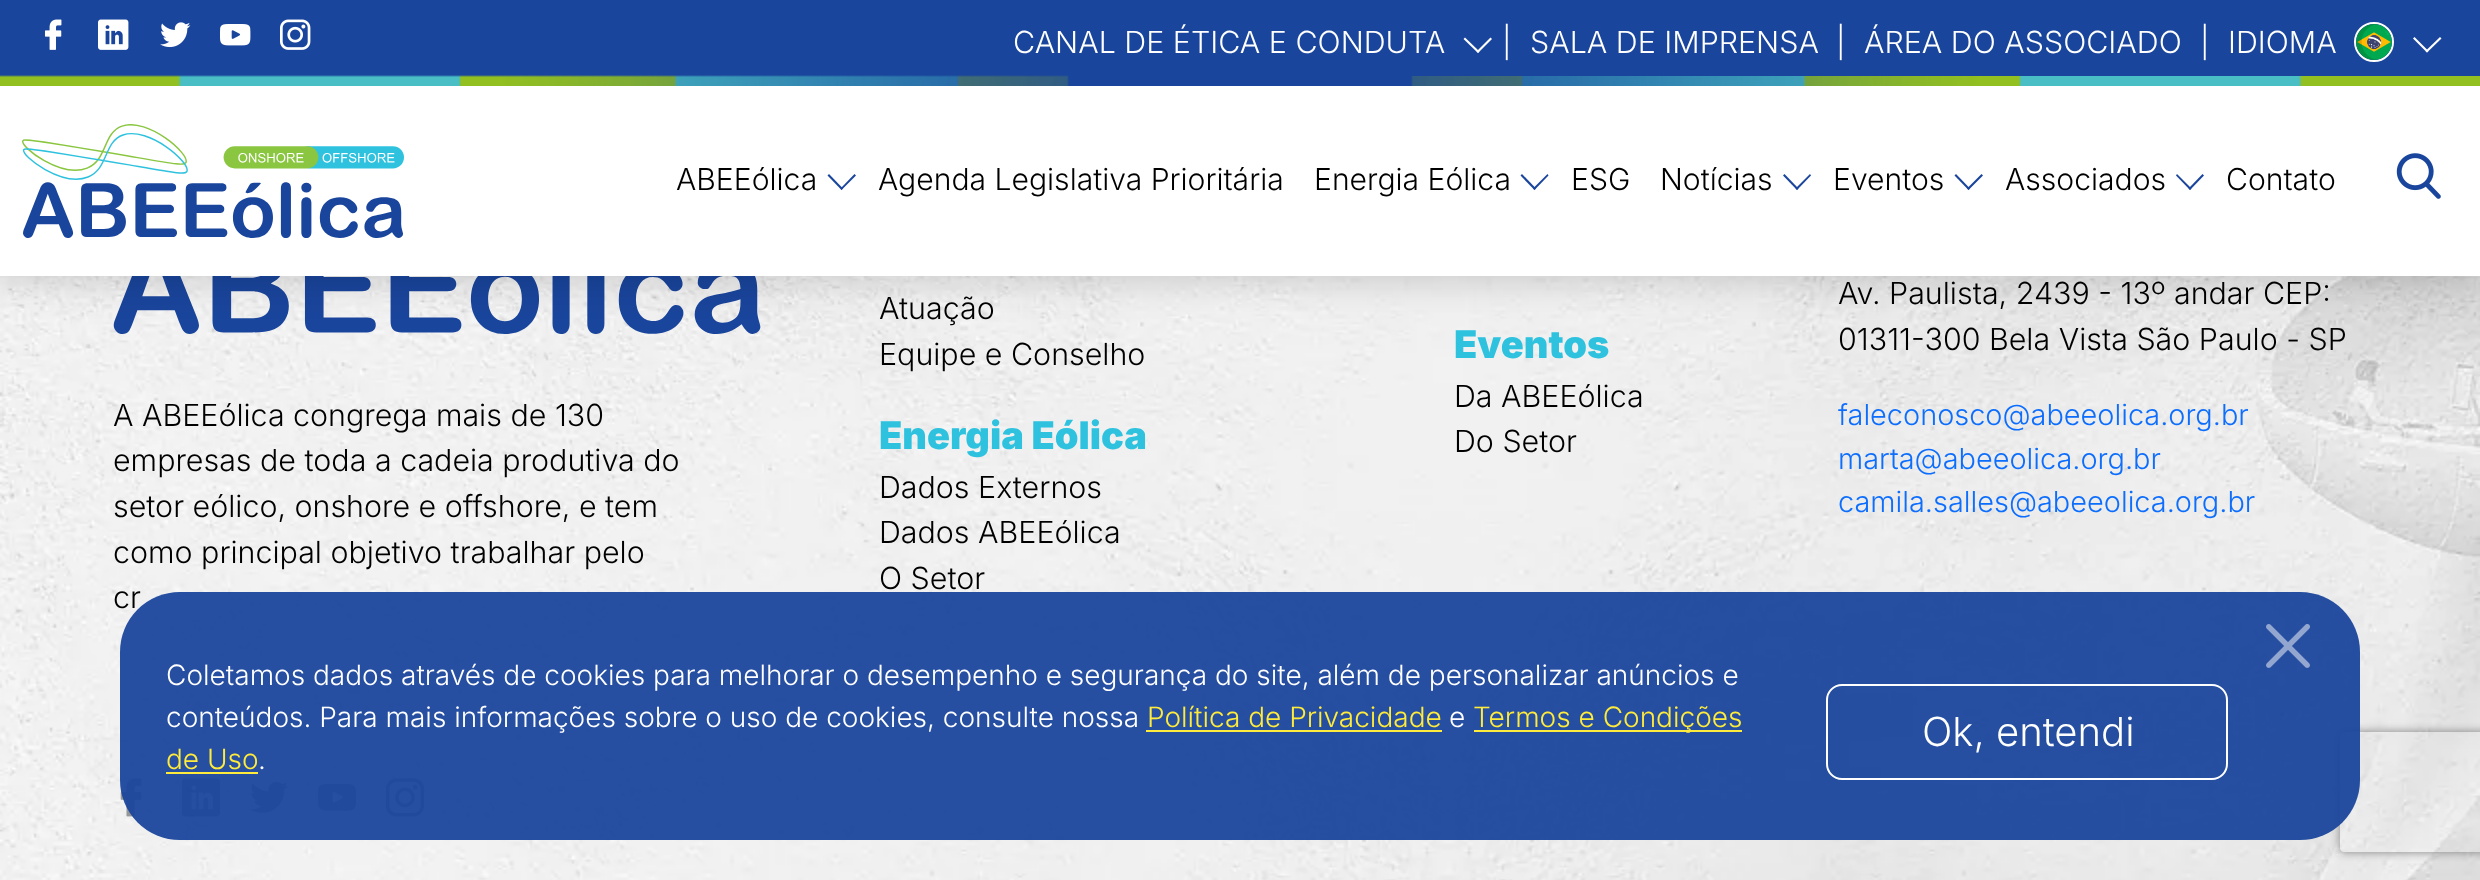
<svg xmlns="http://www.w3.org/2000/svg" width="2480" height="880">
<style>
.a{font:300 30.4px Inter;fill:#fff}
.b{font:300 30.1px Inter;fill:#000}
.c{font:300 30.4px Inter;fill:#000}
.d{font:900 38px Inter;fill:#2fc2df}
.e{font:300 28.9px Inter;fill:#0d6efd}
.f{font:300 28px Inter;fill:#fff}
.g{font:300 28px Inter;fill:#ffeb3b}
.h{font:300 40px Inter;fill:#fff}
</style>
<defs>
<clipPath id="clip1"><path d="M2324 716h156v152h-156zm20 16h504c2 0 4 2 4 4v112c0 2-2 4-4 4h-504c-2 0-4-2-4-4v-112c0-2 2-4 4-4z" clip-rule="evenodd"/></clipPath>
</defs>
<rect width="100%" height="100%" fill="#fff"/>
<image href="11.png" x="0" y="276" width="2480" height="604"/>
<image href="12.png" x="113" y="276" width="648" height="58"/>
<path fill="#00000033" filter="blur(20px)" d="M-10 0h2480v276H-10z"/>
<path fill="#fff" d="M0 86h2480v190H0z"/>
<path fill="#1a459c" d="M0 0h2480v86H0z"/>
<image href="1.png" x="44" y="19" width="18" height="31"/>
<image href="2.png" x="98" y="19" width="31" height="31"/>
<image href="3.png" x="160" y="22" width="31" height="26"/>
<image href="4.png" x="220" y="24" width="31" height="22"/>
<image href="5.png" x="280" y="19" width="31" height="31"/>
<path fill="#fff" d="M1490.5 37.5l1.5 1.5l-14 14l-1.5-1.5z"/>
<path fill="#fff" d="M1465 37.5l14.5 14l-1.5 1.5l-14.5-14z"/>
<circle fill="none" stroke="#fff" stroke-width="2" cx="2374" cy="42" r="19"/>
<image href="6.png" x="2356" y="24" width="36" height="36"/>
<path fill="#fff" d="M2440 37l1.5 1.5l-14.5 14l-1.5-1.5z"/>
<path fill="#fff" d="M2414.5 37l14 14l-1.5 1.5l-14-14z"/>
<image href="7.png" x="0" y="75" width="1069" height="11"/>
<image href="8.png" x="1411" y="76" width="1069" height="10"/>
<image href="9.png" x="22" y="124" width="382" height="114"/>
<path fill="#1a459c" d="M854.5 174l1.5 1.5l-14.5 14.5l-1-1.5z"/>
<path fill="#1a459c" d="M829 174l14 14.5l-1.5 1.5l-14-14.5z"/>
<path fill="#1a459c" d="M1547.5 174l1 1.5l-14 14.5l-1.5-1.5z"/>
<path fill="#1a459c" d="M1522 174l14 14.5l-1.5 1.5l-14-14.5z"/>
<path fill="#1a459c" d="M1810 174l1 1.5l-14 14.5l-1.5-1.5z"/>
<path fill="#1a459c" d="M1784.5 174l14 14.5l-1.5 1.5l-14-14.5z"/>
<path fill="#1a459c" d="M1981.5 174l1.5 1.5l-14.5 14.5l-1.5-1.5z"/>
<path fill="#1a459c" d="M1956 174l14 14.5l-1.5 1.5l-14-14.5z"/>
<path fill="#1a459c" d="M2202.5 174l1.5 1.5l-14 14.5l-1.5-1.5z"/>
<path fill="#1a459c" d="M2177 174l14.5 14.5l-1.5 1.5l-14-14.5z"/>
<image href="10.png" x="2396" y="153" width="45" height="46"/>
<image href="13.png" x="120" y="778" width="22" height="39"/>
<image href="14.png" x="182" y="778" width="38" height="39"/>
<image href="15.png" x="250" y="782" width="38" height="31"/>
<image href="16.png" x="318" y="784" width="38" height="27"/>
<image href="17.png" x="386" y="778" width="38" height="39"/>
<g clip-path="url(#clip1)">
<rect fill="#808080" filter="blur(5px)" x="2340" y="732" width="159" height="120" rx="4"/>
</g>
<text class="a" x="1013" y="53">CANAL DE ÉTICA E CONDUTA</text>
<text class="a" x="1502" y="53">|</text>
<text class="a" x="1530" y="53">SALA DE IMPRENSA</text>
<text class="a" x="1836" y="53">|</text>
<text class="a" x="1864" y="53">ÁREA DO ASSOCIADO</text>
<text class="a" x="2200" y="53">|</text>
<text class="a" x="2228" y="53">IDIOMA</text>
<text class="b" x="676" y="190">ABEEólica</text>
<text class="b" x="878" y="190">Agenda Legislativa Prioritária</text>
<text class="b" x="1314" y="190">Energia Eólica</text>
<text class="b" x="1571" y="190">ESG</text>
<text class="b" x="1660" y="190">Notícias</text>
<text class="b" x="1833" y="190">Eventos</text>
<text class="b" x="2005" y="190">Associados</text>
<text class="b" x="2226" y="190">Contato</text>
<text class="c" x="113" y="426">A ABEEólica congrega mais de 130</text>
<text class="c" x="113" y="471">empresas de toda a cadeia produtiva do</text>
<text class="c" x="113" y="517">setor eólico, onshore e offshore, e tem</text>
<text class="c" x="113" y="563">como principal objetivo trabalhar pelo</text>
<text class="c" x="113" y="608">cr</text>
<text class="c" x="879" y="319">Atuação</text>
<text class="c" x="879" y="365">Equipe e Conselho</text>
<text class="d" x="879" y="449">Energia Eólica</text>
<text class="c" x="879" y="498">Dados Externos</text>
<text class="c" x="879" y="543">Dados ABEEólica</text>
<text class="c" x="879" y="589">O Setor</text>
<text class="d" x="1454" y="358">Eventos</text>
<text class="c" x="1454" y="407">Da ABEEólica</text>
<text class="c" x="1454" y="452">Do Setor</text>
<text class="c" x="1838" y="304">Av. Paulista, 2439 - 13º andar CEP:</text>
<text class="c" x="1838" y="350">01311-300 Bela Vista São Paulo - SP</text>
<text class="e" x="1838" y="425">faleconosco@abeeolica.org.br</text>
<text class="e" x="1838" y="469">marta@abeeolica.org.br</text>
<text class="e" x="1838" y="512">camila.salles@abeeolica.org.br</text>
<rect fill="#1a459cf2" x="120" y="592" width="2240" height="248" rx="60"/>
<image href="18.png" x="2266" y="624" width="44" height="44"/>
<text class="f" x="166" y="685">Coletamos dados através de cookies para melhorar o desempenho e segurança do site, além de personalizar anúncios e</text>
<text class="f" x="166" y="727">conteúdos. Para mais informações sobre o uso de cookies, consulte nossa</text>
<text class="g" x="1147" y="727">Política de Privacidade</text>
<path fill="#ffeb3b" d="M1146 730h296v2H1146z"/>
<text class="f" x="1449" y="727">e</text>
<path fill="#ffeb3b" d="M1474 730h268v2H1474z"/>
<text class="g" x="1473" y="727">Termos e Condições</text>
<text class="g" x="166" y="769">de Uso</text>
<path fill="#ffeb3b" d="M166 772h92v2H166z"/>
<text class="f" x="258" y="769">.</text>
<rect fill="none" stroke="#fff" stroke-width="2" x="1827" y="685" width="400" height="94" rx="15"/>
<text class="h" x="1922" y="746">Ok, entendi</text>
</svg>
